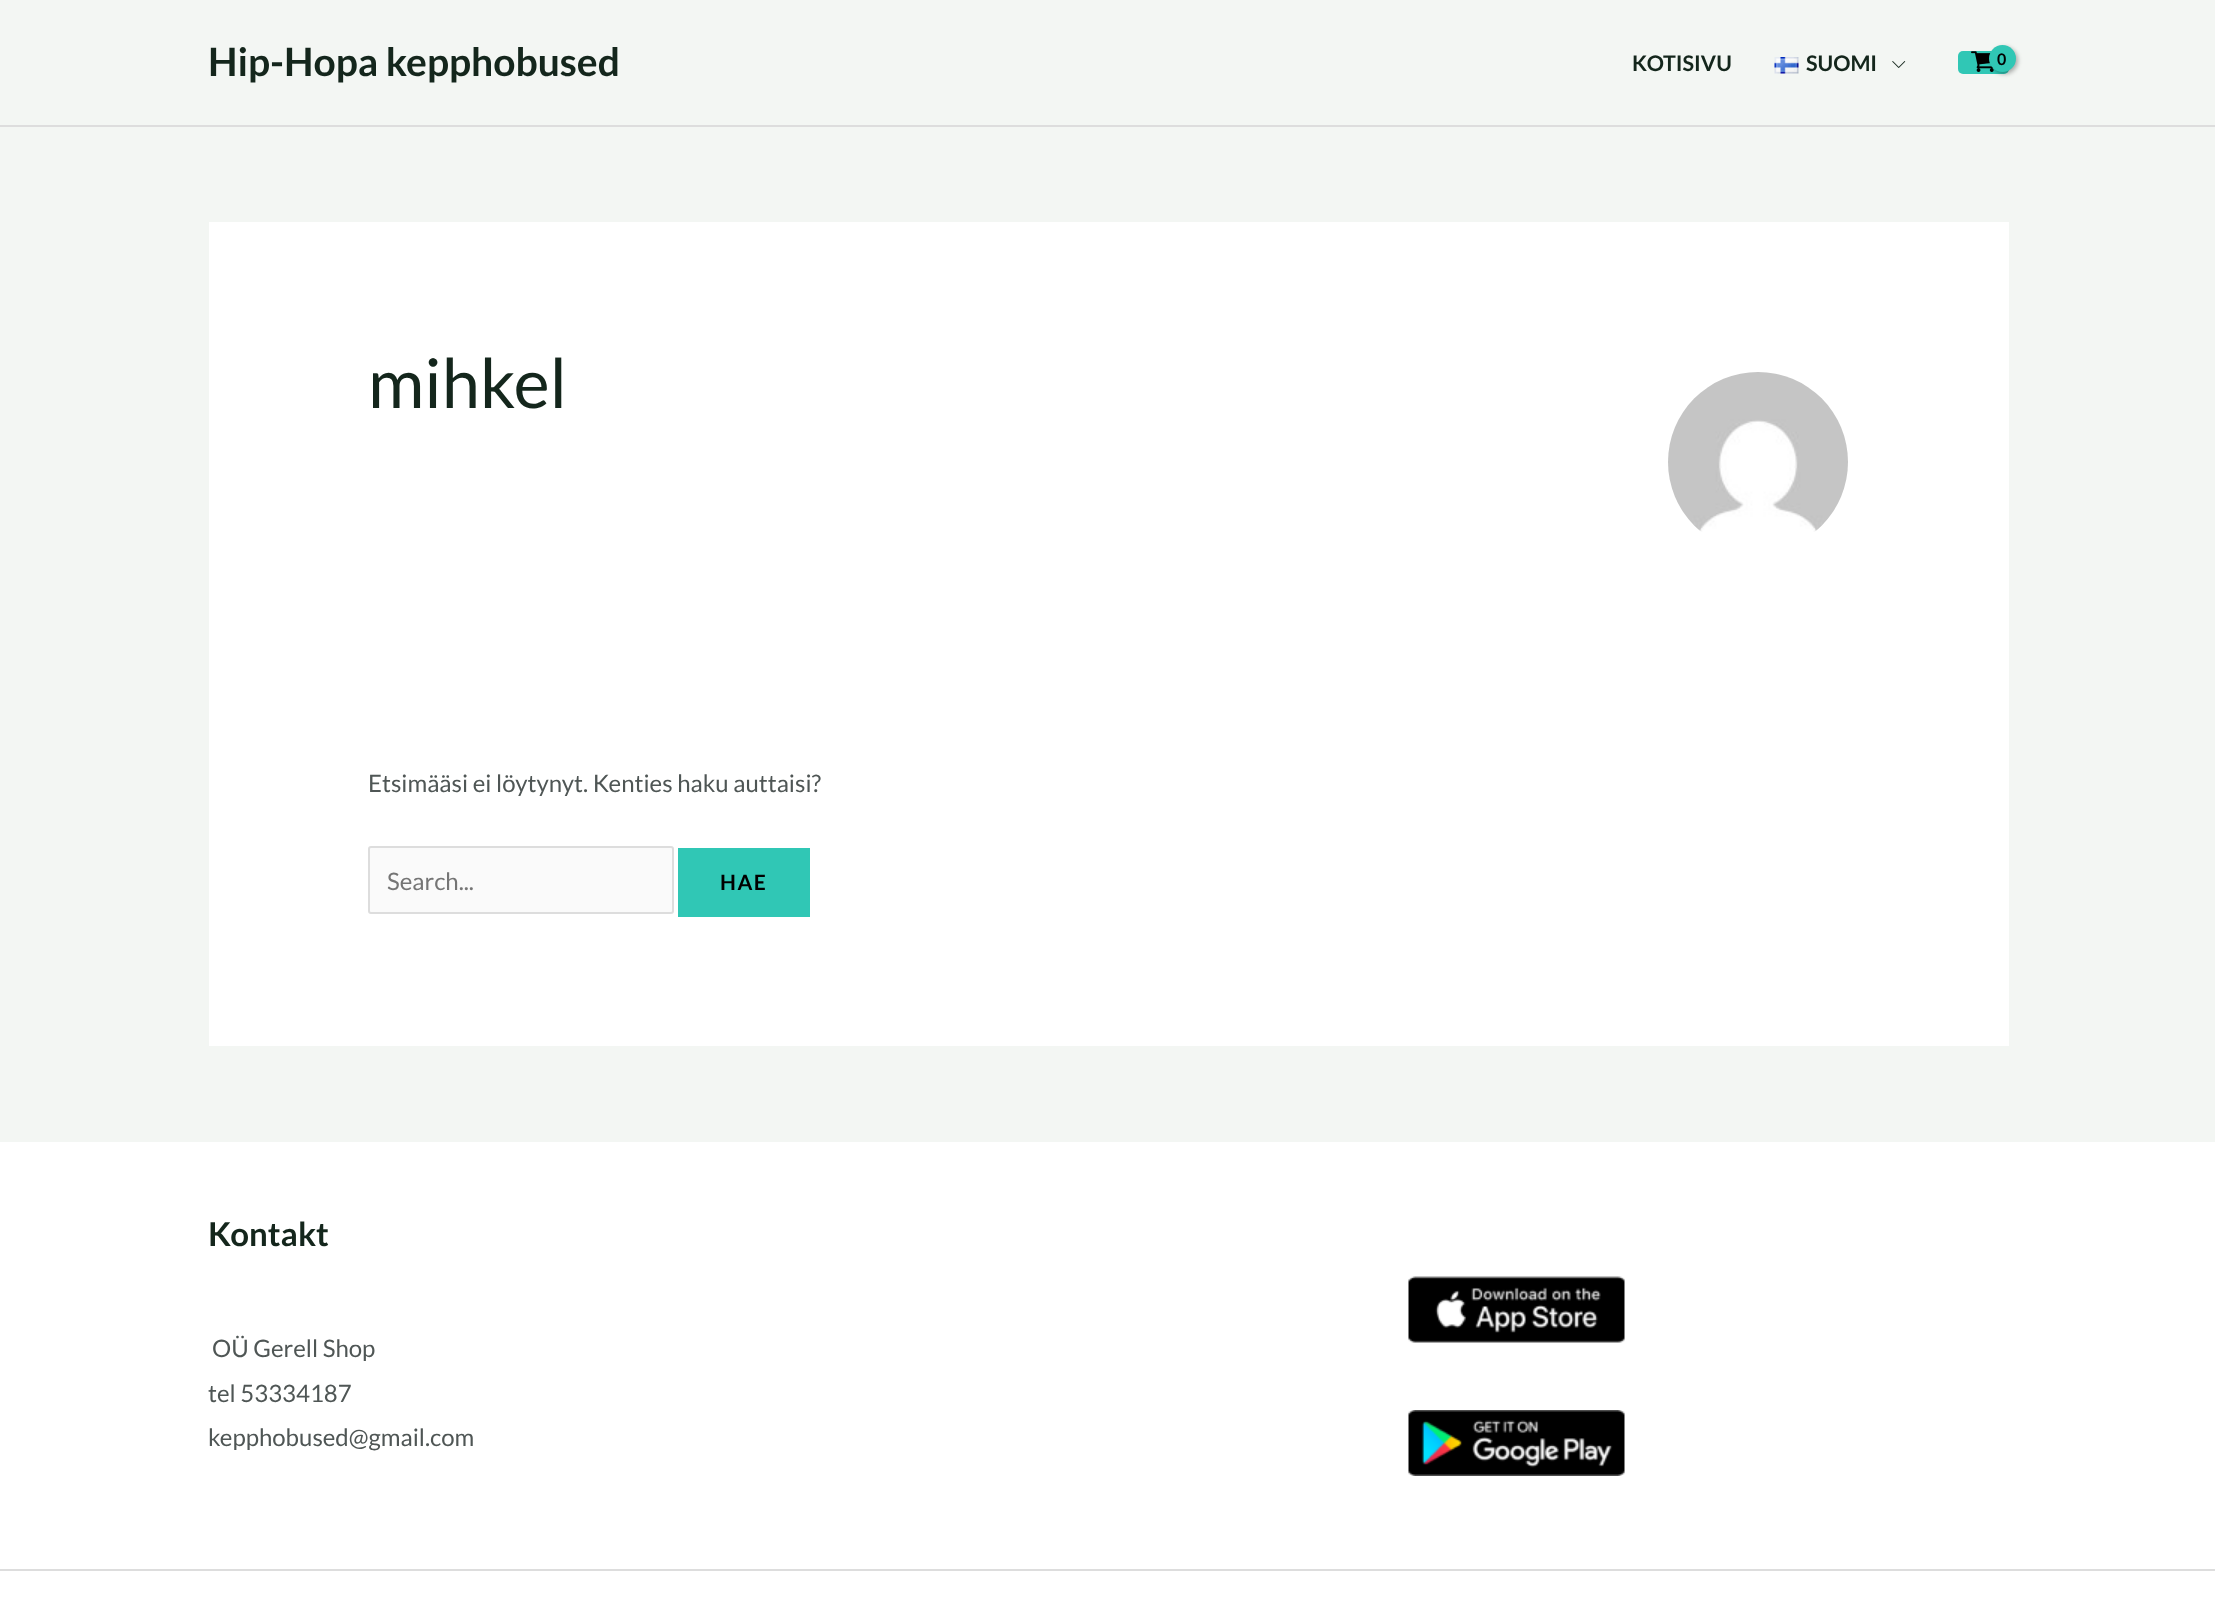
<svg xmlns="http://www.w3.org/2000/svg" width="2215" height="1599">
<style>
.a{font:bold 39px Lato;fill:#14261c}
.b{font:bold 21.5px Lato;fill:#14261c}
.c{font:bold 16px Lato;letter-spacing:-1px;fill:#000}
.d{font:68.5px Lato;fill:#14261c}
.e{font:24px Lato;fill:#4f5655}
.f{font:24px Lato;fill:#757575}
.g{font:bold 21px Lato;letter-spacing:1.5px;fill:#000}
.h{font:bold 33px Lato;fill:#14261c}
</style>
<rect width="100%" height="100%" fill="#f3f6f3"/>
<path fill="#ddd" d="M0 125h2215v2H0z"/>
<image href="1.png" x="1774" y="57" width="25" height="17"/>
<image href="2.png" x="1892" y="61" width="14" height="7"/>
<rect fill="#30c7b5" x="1958" y="51" width="51" height="23" rx="5"/>
<image href="3.png" x="1971" y="51" width="23" height="21"/>
<rect fill="#0000004d" filter="blur(2px)" x="1991" y="47" width="27" height="27" rx="13.5"/>
<circle fill="#30c7b5" cx="2002.5" cy="58.5" r="13.5"/>
<path fill="#fff" d="M209 222h1800v824H209z"/>
<image href="4.png" x="1668" y="372" width="180" height="160"/>
<rect fill="#fafafa" stroke="#ddd" stroke-width="2" x="369" y="847" width="304" height="66" rx="2"/>
<path fill="#30c7b5" d="M678 848h132v69H678z"/>
<path fill="#fff" d="M0 1142h2215v457H0z"/>
<image href="5.png" x="1408" y="1276" width="217" height="67"/>
<image href="6.png" x="1408" y="1410" width="217" height="66"/>
<path fill="#ddd" d="M0 1569h2215v2H0z"/>
<text class="a" x="208" y="76">Hip-Hopa kepphobused</text>
<text class="b" x="1632" y="71">KOTISIVU</text>
<text class="b" x="1806" y="71">SUOMI</text>
<text class="c" x="1997" y="65">0</text>
<text class="d" x="368" y="408">mihkel</text>
<text class="e" x="368" y="792">Etsimääsi ei löytynyt. Kenties haku auttaisi?</text>
<text class="f" x="387" y="890">Search...</text>
<text class="g" x="720" y="890">HAE</text>
<text class="h" x="208" y="1246">Kontakt</text>
<text class="e" x="212" y="1357">OÜ Gerell Shop</text>
<text class="e" x="208" y="1402">tel 53334187</text>
<text class="e" x="208" y="1446">kepphobused@gmail.com</text>
</svg>
